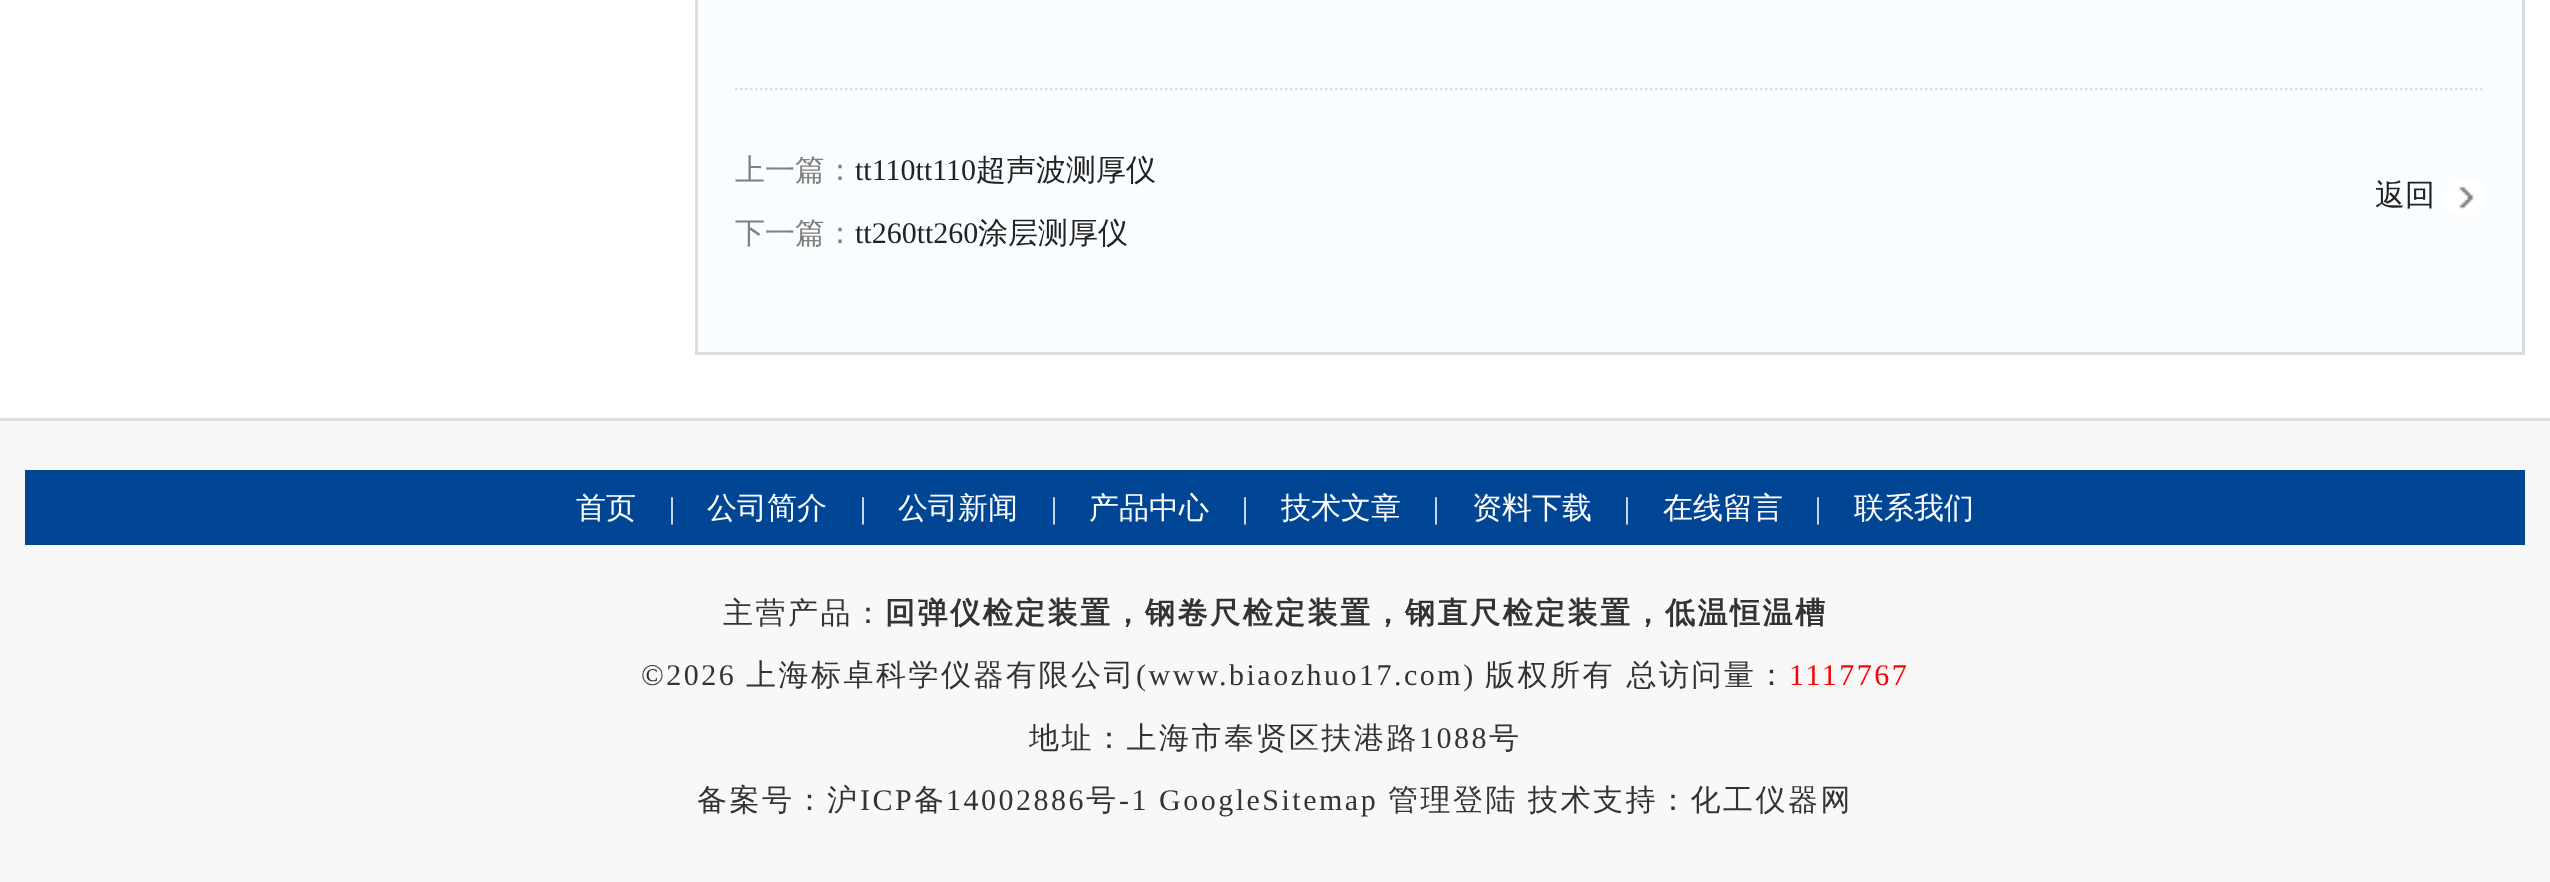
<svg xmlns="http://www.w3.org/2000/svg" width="2550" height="882">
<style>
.a{font:500 30px WenQuanYi Zen Hei;fill:#80817c}
.b{font:30px Liberation Serif;fill:#222}
.c{font:500 30px WenQuanYi Zen Hei;fill:#222}
.d{font:500 30px WenQuanYi Zen Hei;fill:#fff}
.e{font:30px Liberation Serif;fill:#fff}
.f{font:500 30px WenQuanYi Zen Hei;letter-spacing:2.5px;fill:#333}
.g{font:bold 30px WenQuanYi Zen Hei;letter-spacing:2.5px;fill:#333}
.h{font:30px Liberation Serif;letter-spacing:2.5px;fill:#333}
.i{font:30px Liberation Serif;letter-spacing:2.5px;fill:#f00}
</style>
<rect width="100%" height="100%" fill="#fff"/>
<path fill="#fafdff" stroke="#dcdcdc" stroke-width="3" d="M696.5 -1.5h1827v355H696.5z"/>
<path fill="none" stroke="#ddd" stroke-width="2.5" stroke-dasharray="2.5 2.5" d="M735 89h1750"/>
<image href="1.png" x="2445" y="178" width="40" height="39"/>
<path fill="#f8f8f8" d="M0 421h2550v461H0z"/>
<path fill="#dcdcdc" d="M0 418h2550v3H0z"/>
<path fill="#004695" d="M25 470h2500v75H25z"/>
<text class="a" x="735" y="180">上一篇：</text>
<text class="b" x="855" y="180">tt110tt110</text>
<text class="c" x="976" y="180">超声波测厚仪</text>
<text class="a" x="735" y="243">下一篇：</text>
<text class="b" x="855" y="243">tt260tt260</text>
<text class="c" x="978" y="243">涂层测厚仪</text>
<text class="c" x="2375" y="205">返回</text>
<text class="d" x="576" y="518">首页</text>
<text class="e" x="669" y="518">|</text>
<text class="d" x="707" y="518">公司简介</text>
<text class="e" x="860" y="518">|</text>
<text class="d" x="898" y="518">公司新闻</text>
<text class="e" x="1051" y="518">|</text>
<text class="d" x="1089" y="518">产品中心</text>
<text class="e" x="1242" y="518">|</text>
<text class="d" x="1281" y="518">技术文章</text>
<text class="e" x="1433" y="518">|</text>
<text class="d" x="1472" y="518">资料下载</text>
<text class="e" x="1624" y="518">|</text>
<text class="d" x="1663" y="518">在线留言</text>
<text class="e" x="1815" y="518">|</text>
<text class="d" x="1854" y="518">联系我们</text>
<text class="f" x="723" y="623">主营产品：</text>
<text class="g" x="885" y="623">回弹仪检定装置，钢卷尺检定装置，钢直尺检定装置，低温恒温槽</text>
<text class="h" x="641" y="685">©2026</text>
<text class="f" x="746" y="685">上海标卓科学仪器有限公司</text>
<text class="h" x="1136" y="685">(www.biaozhuo17.com)</text>
<text class="f" x="1485" y="685">版权所有 总访问量：</text>
<text class="i" x="1789" y="685">1117767</text>
<text class="f" x="1029" y="748">地址：上海市奉贤区扶港路</text>
<text class="h" x="1419" y="748">1088</text>
<text class="f" x="1489" y="748">号</text>
<text class="f" x="697" y="810">备案号：沪</text>
<text class="h" x="860" y="810">ICP</text>
<text class="f" x="914" y="810">备</text>
<text class="h" x="946" y="810">14002886</text>
<text class="f" x="1086" y="810">号</text>
<text class="h" x="1119" y="810">-1 GoogleSitemap</text>
<text class="f" x="1388" y="810">管理登陆</text>
<text class="f" x="1528" y="810">技术支持：化工仪器网</text>
</svg>
